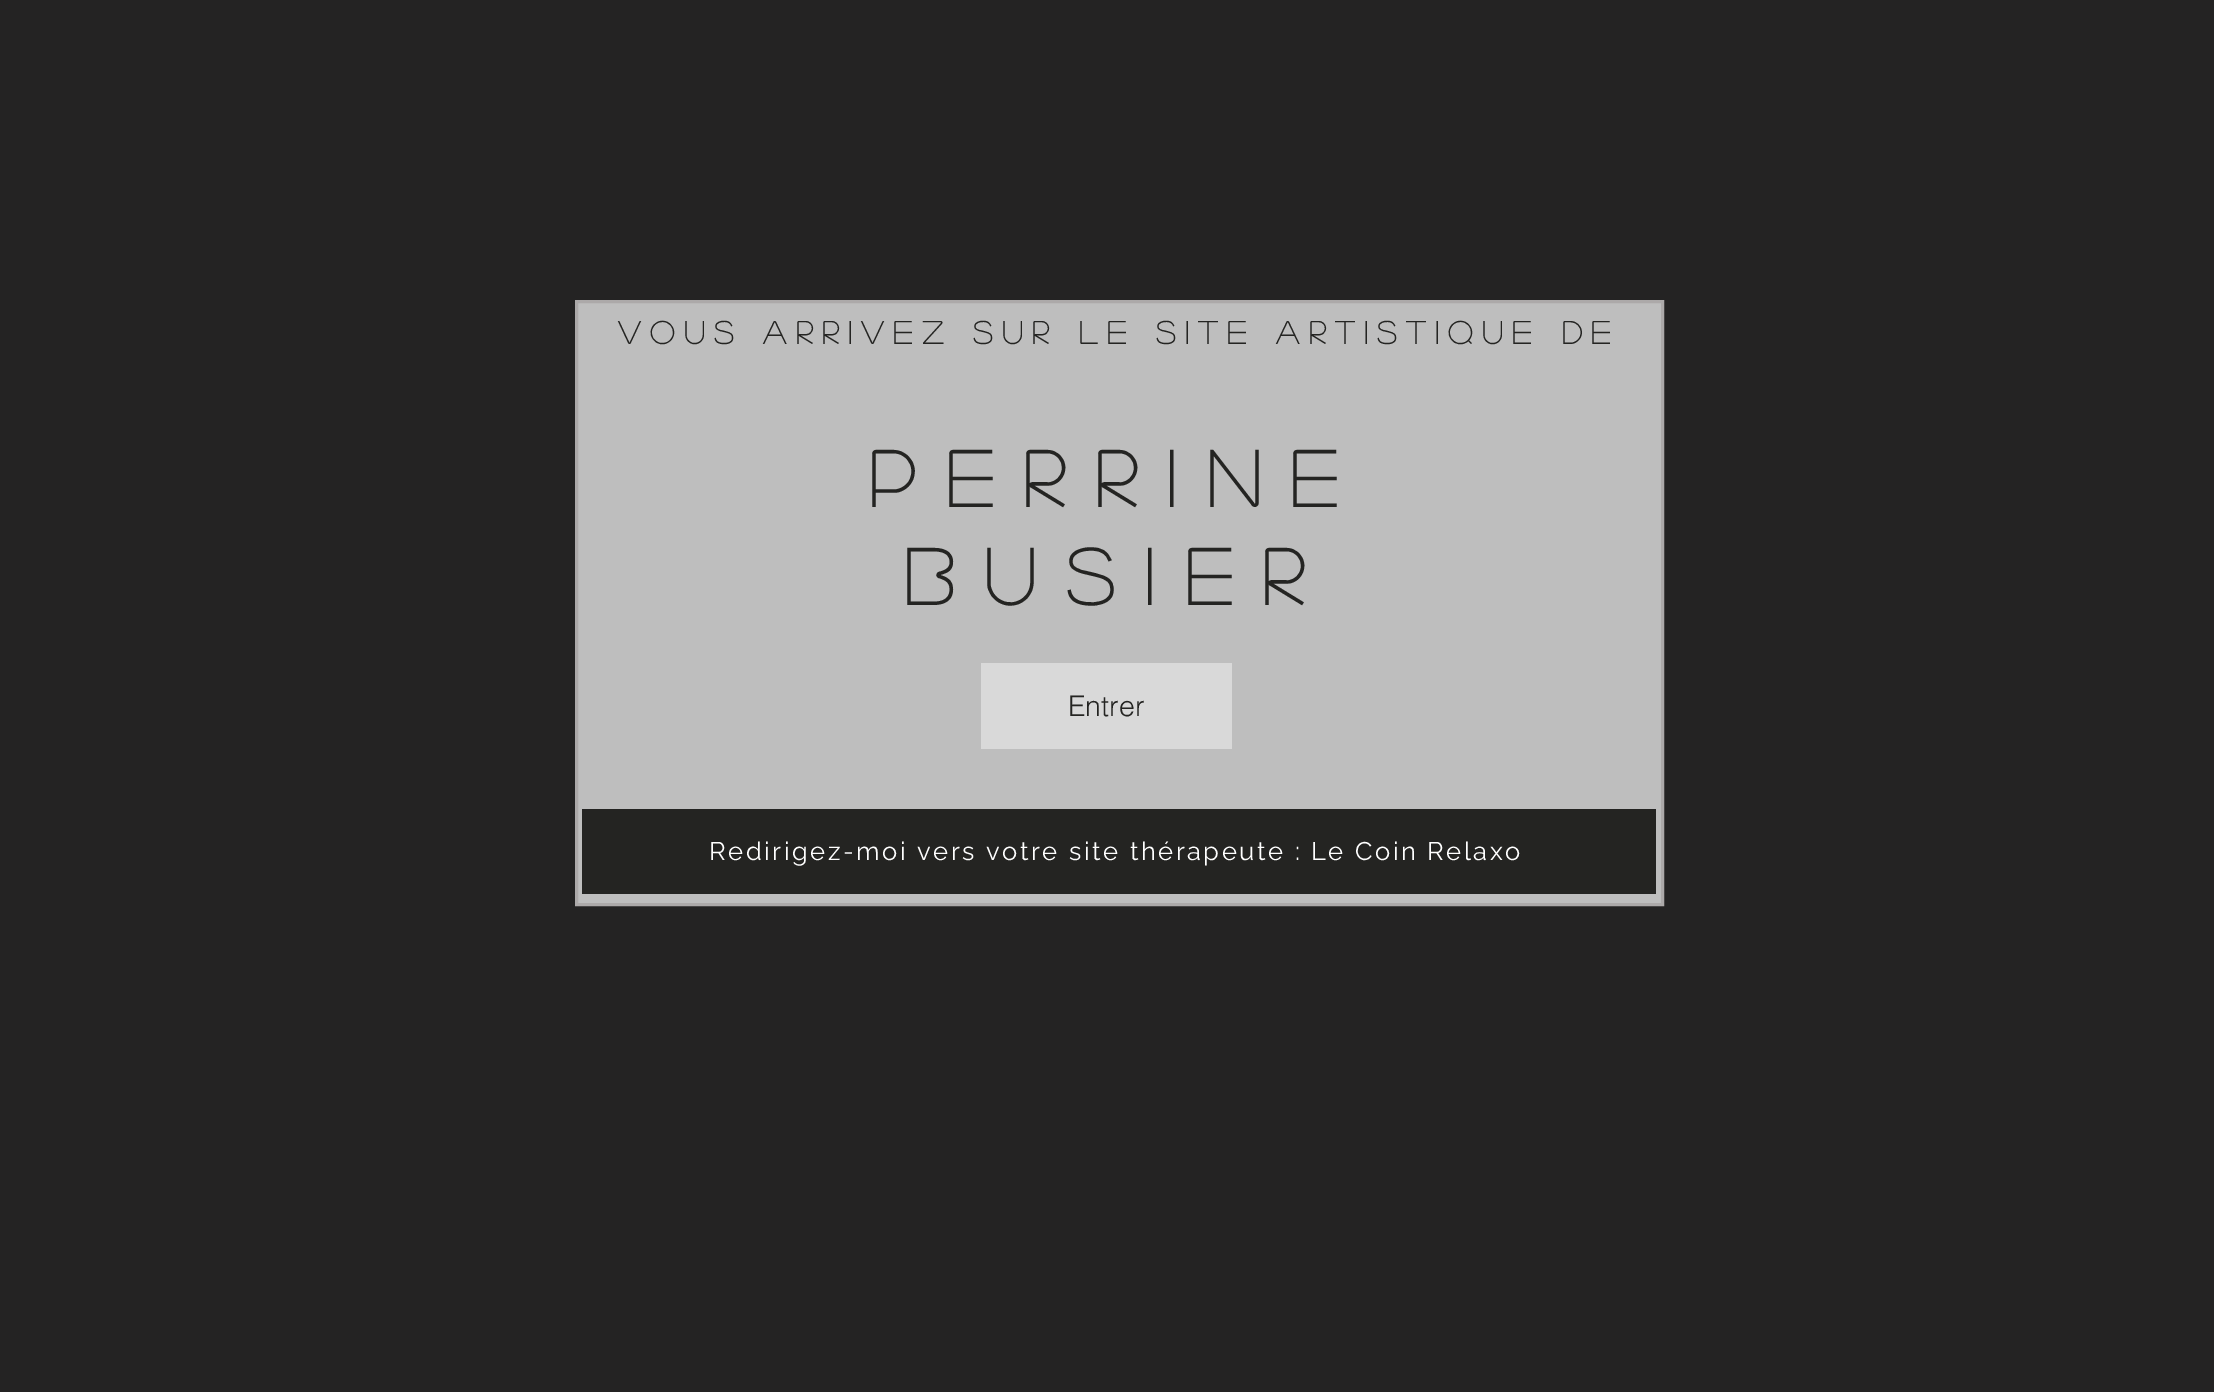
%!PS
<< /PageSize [2214 1392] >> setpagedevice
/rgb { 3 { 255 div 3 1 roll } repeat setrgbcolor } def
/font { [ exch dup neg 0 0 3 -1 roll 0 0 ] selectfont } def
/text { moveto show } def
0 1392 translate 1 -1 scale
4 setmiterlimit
36 35 35 rgb
0 0 2214 1392 rectfill
190 190 190 rgb
576.5 301.5 moveto 1086 0 rlineto 0 603 rlineto -1086 0 rlineto closepath gsave fill grestore
172 169 169 rgb
3 setlinewidth
stroke
217 217 217 rgb
981 663 251 86 rectfill
36 36 34 rgb
582 809 1074 85 rectfill
/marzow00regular-Bold 31.5 font
618 344 moveto 9.75 0 (Vous arrivez sur le site artistique de) ashow
/marzow00regular-Bold 78 font
869 507 moveto 31.25 0 (PErrine) ashow
904 605 moveto 31.25 0 (Busier) ashow
/helvetica-Light 28.5 font
(Entrer) 1068 716 text
/Raleway-Regular 25.5 font
255 255 255 rgb
709 860 moveto 2.55 0 (Redirigez-moi vers votre site thérapeute : Le Coin Relaxo) ashow
showpage
